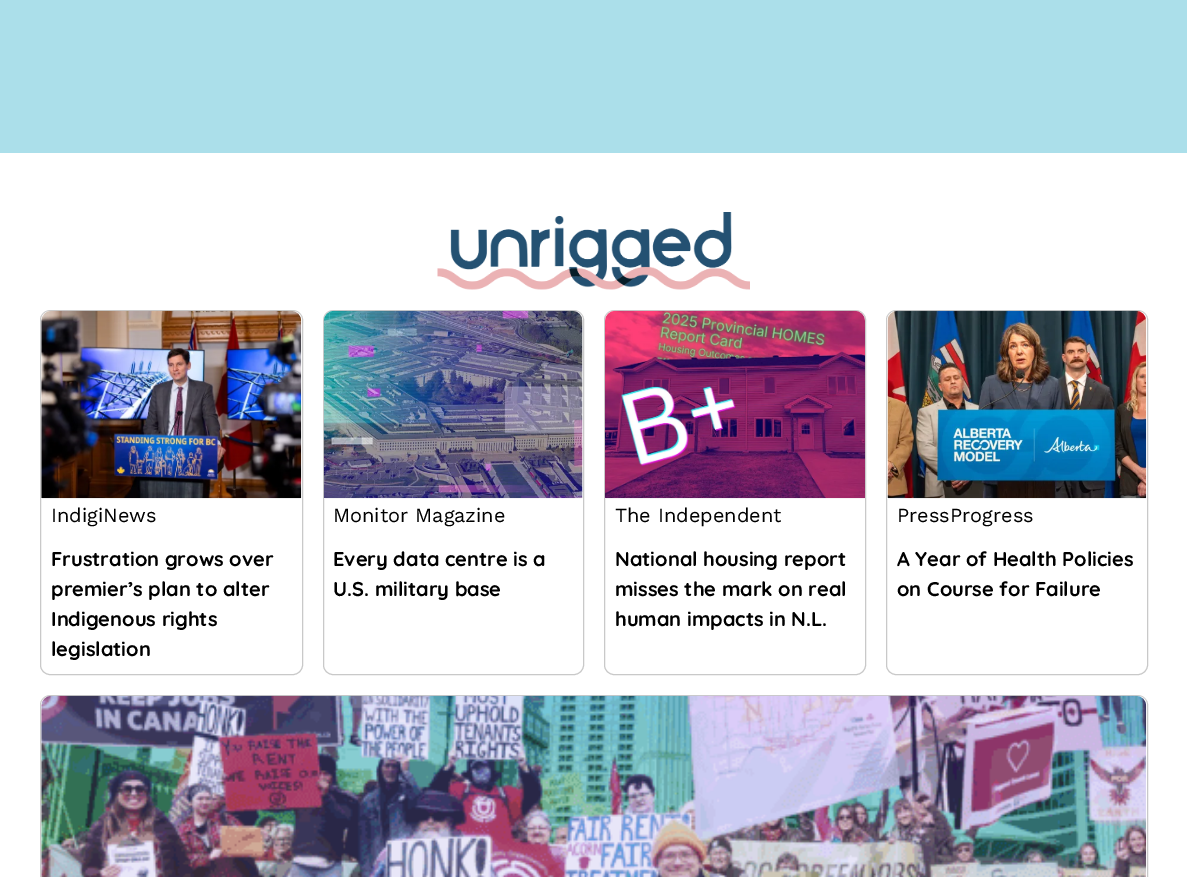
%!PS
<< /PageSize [1187 877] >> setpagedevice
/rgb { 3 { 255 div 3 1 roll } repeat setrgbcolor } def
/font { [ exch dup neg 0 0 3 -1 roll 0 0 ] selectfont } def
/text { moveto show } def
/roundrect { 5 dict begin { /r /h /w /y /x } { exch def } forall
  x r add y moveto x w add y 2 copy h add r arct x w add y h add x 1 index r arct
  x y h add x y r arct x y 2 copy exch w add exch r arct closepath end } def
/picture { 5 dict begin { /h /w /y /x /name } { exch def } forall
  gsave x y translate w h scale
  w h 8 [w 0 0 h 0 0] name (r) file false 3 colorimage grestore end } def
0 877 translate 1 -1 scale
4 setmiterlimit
255 255 255 rgb
0 0 1187 877 rectfill
171 223 234 rgb
0 0 1187 153 rectfill
(img_01.rgb) 437 212 313 78 picture
201 201 201 rgb
40.5 310.5 262 364 9.5 roundrect stroke
(img_02.rgb) 41 310 261 189 picture
323.5 310.5 260 364 9.5 roundrect stroke
(img_03.rgb) 323 310 260 189 picture
604.5 310.5 261 364 9.5 roundrect stroke
(img_04.rgb) 605 310 260 189 picture
886.5 310.5 261 364 9.5 roundrect stroke
(img_05.rgb) 887 310 260 189 picture
40.5 695.5 1107 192 9.5 roundrect stroke
(img_06.rgb) 41 695 1106 182 picture
/WorkSans-Regular 20 font
0 0 0 rgb
(IndigiNews) 51 522 text
/Quicksand-Bold 20 font
(Frustration grows over) 51 566 text
(premier’s plan to alter) 51 596 text
(Indigenous rights) 51 626 text
(legislation) 51 656 text
/WorkSans-Regular 20 font
(Monitor Magazine) 333 522 text
/Quicksand-Bold 20 font
(Every data centre is a) 333 566 text
(U.S. military base) 333 596 text
/WorkSans-Regular 20 font
(The Independent) 615 522 text
/Quicksand-Bold 20 font
(National housing report) 615 566 text
(misses the mark on real) 615 596 text
(human impacts in N.L.) 615 626 text
/WorkSans-Regular 20 font
(PressProgress) 897 522 text
/Quicksand-Bold 20 font
(A Year of Health Policies) 897 566 text
(on Course for Failure) 897 596 text
showpage
